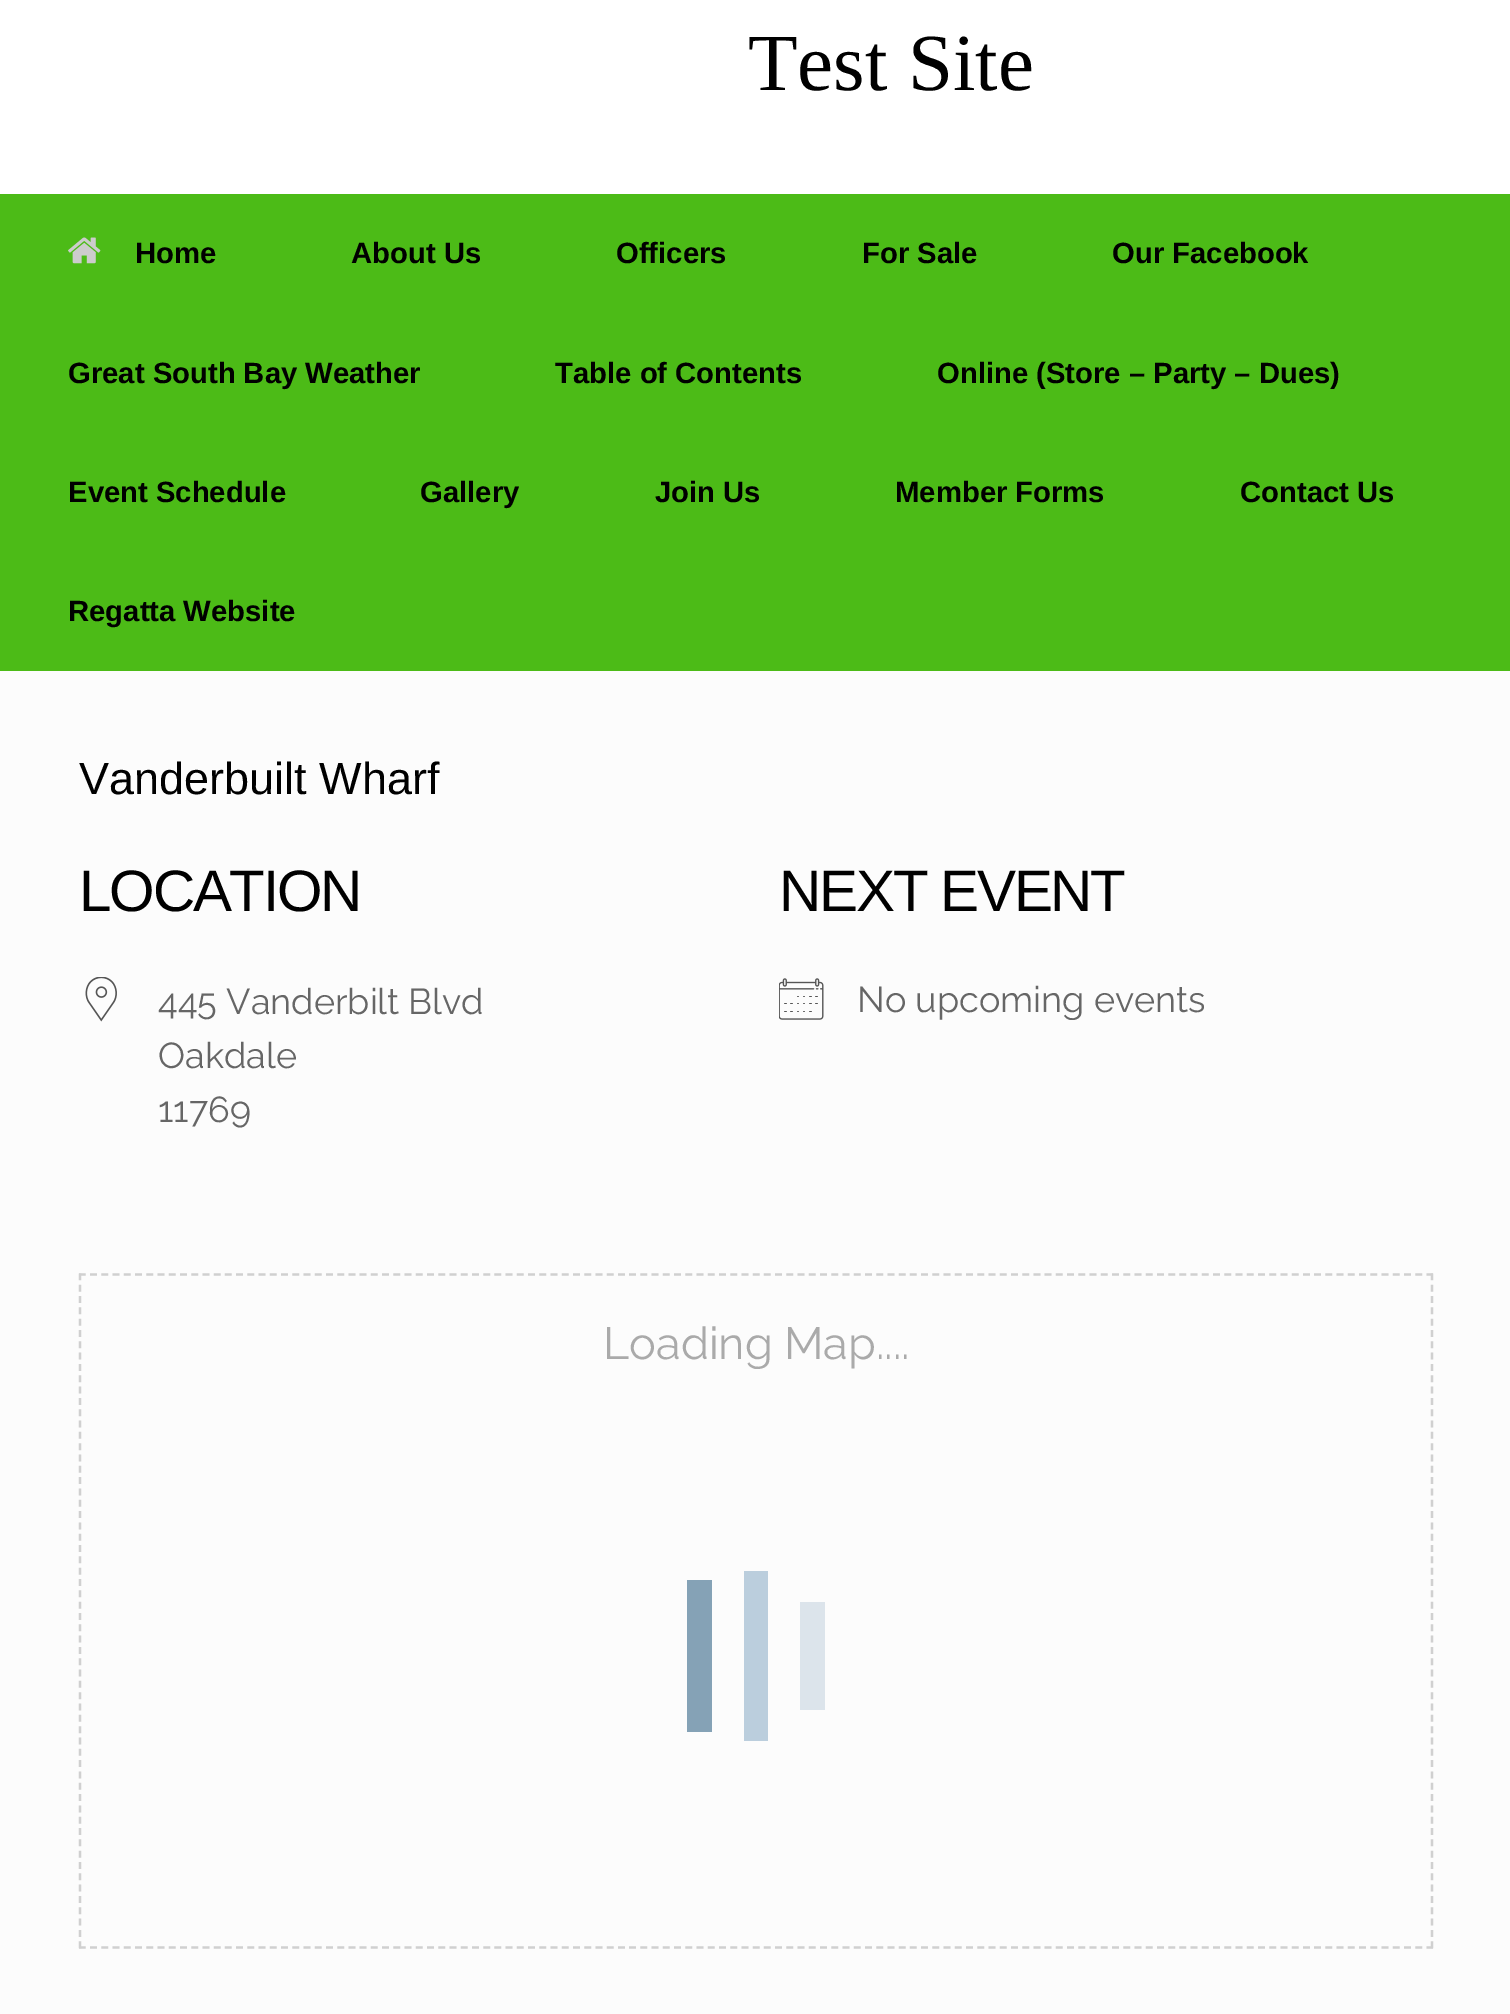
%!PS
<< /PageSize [1510 2014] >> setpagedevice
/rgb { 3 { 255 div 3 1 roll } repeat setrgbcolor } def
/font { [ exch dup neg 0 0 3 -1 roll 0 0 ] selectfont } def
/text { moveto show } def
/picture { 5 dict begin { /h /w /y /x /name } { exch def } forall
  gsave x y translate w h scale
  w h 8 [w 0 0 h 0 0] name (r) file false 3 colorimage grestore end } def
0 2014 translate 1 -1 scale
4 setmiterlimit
255 255 255 rgb
0 0 1510 2014 rectfill
76 187 23 rgb
0 194 1510 477 rectfill
(img_01.rgb) 68 237 33 27 picture
252 252 252 rgb
0 671 1510 1343 rectfill
(img_02.rgb) 85 977 32 45 picture
(img_03.rgb) 779 978 45 42 picture
208 208 208 rgb
2.2 setlinewidth
[6.75 4.48] 0 setdash
79 1274.5 moveto 1354 0 rlineto stroke
[6.75 4.57] 0 setdash
1432 1273.5 moveto 0 675 rlineto stroke
[6.75 4.48] 0 setdash
79 1947.5 moveto 1354 0 rlineto stroke
[6.75 4.57] 0 setdash
80 1273.5 moveto 0 675 rlineto stroke
133 162 182 rgb
687 1580 25 152 rectfill
187 206 221 rgb
744 1571 24 170 rectfill
220 228 235 rgb
800 1602 25 108 rectfill
/LiberationSerif-Regular 81 font
0 0 0 rgb
(Test Site) 748 90 text
/LiberationSans-Bold 29.25 font
(Home) 135 263 text
(About Us) 351 263 text
(Officers) 616 263 text
(For Sale) 862 263 text
(Our Facebook) 1112 263 text
(Great South Bay Weather) 68 383 text
(Table of Contents) 555 383 text
(Online \(Store – Party – Dues\)) 937 383 text
(Event Schedule) 68 502 text
(Gallery) 420 502 text
(Join Us) 655 502 text
(Member Forms) 895 502 text
(Contact Us) 1240 502 text
(Regatta Website) 68 621 text
/LiberationSans-Regular 45 font
(Vanderbuilt Wharf) 79 794 text
/LiberationSans-Regular 58.5 font
79 911 moveto -2.25 0 (LOCATION) ashow
/Raleway-Regular 36 font
102 102 102 rgb
(445 Vanderbilt Blvd) 158 1014 text
(Oakdale) 158 1068 text
(11769) 158 1122 text
/LiberationSans-Regular 58.5 font
0 0 0 rgb
779 911 moveto -2.25 0 (NEXT EVENT) ashow
/Raleway-Regular 36 font
102 102 102 rgb
(No upcoming events) 857 1012 text
/Raleway-Regular 45 font
170 170 170 rgb
(Loading Map....) 603 1359 text
showpage
